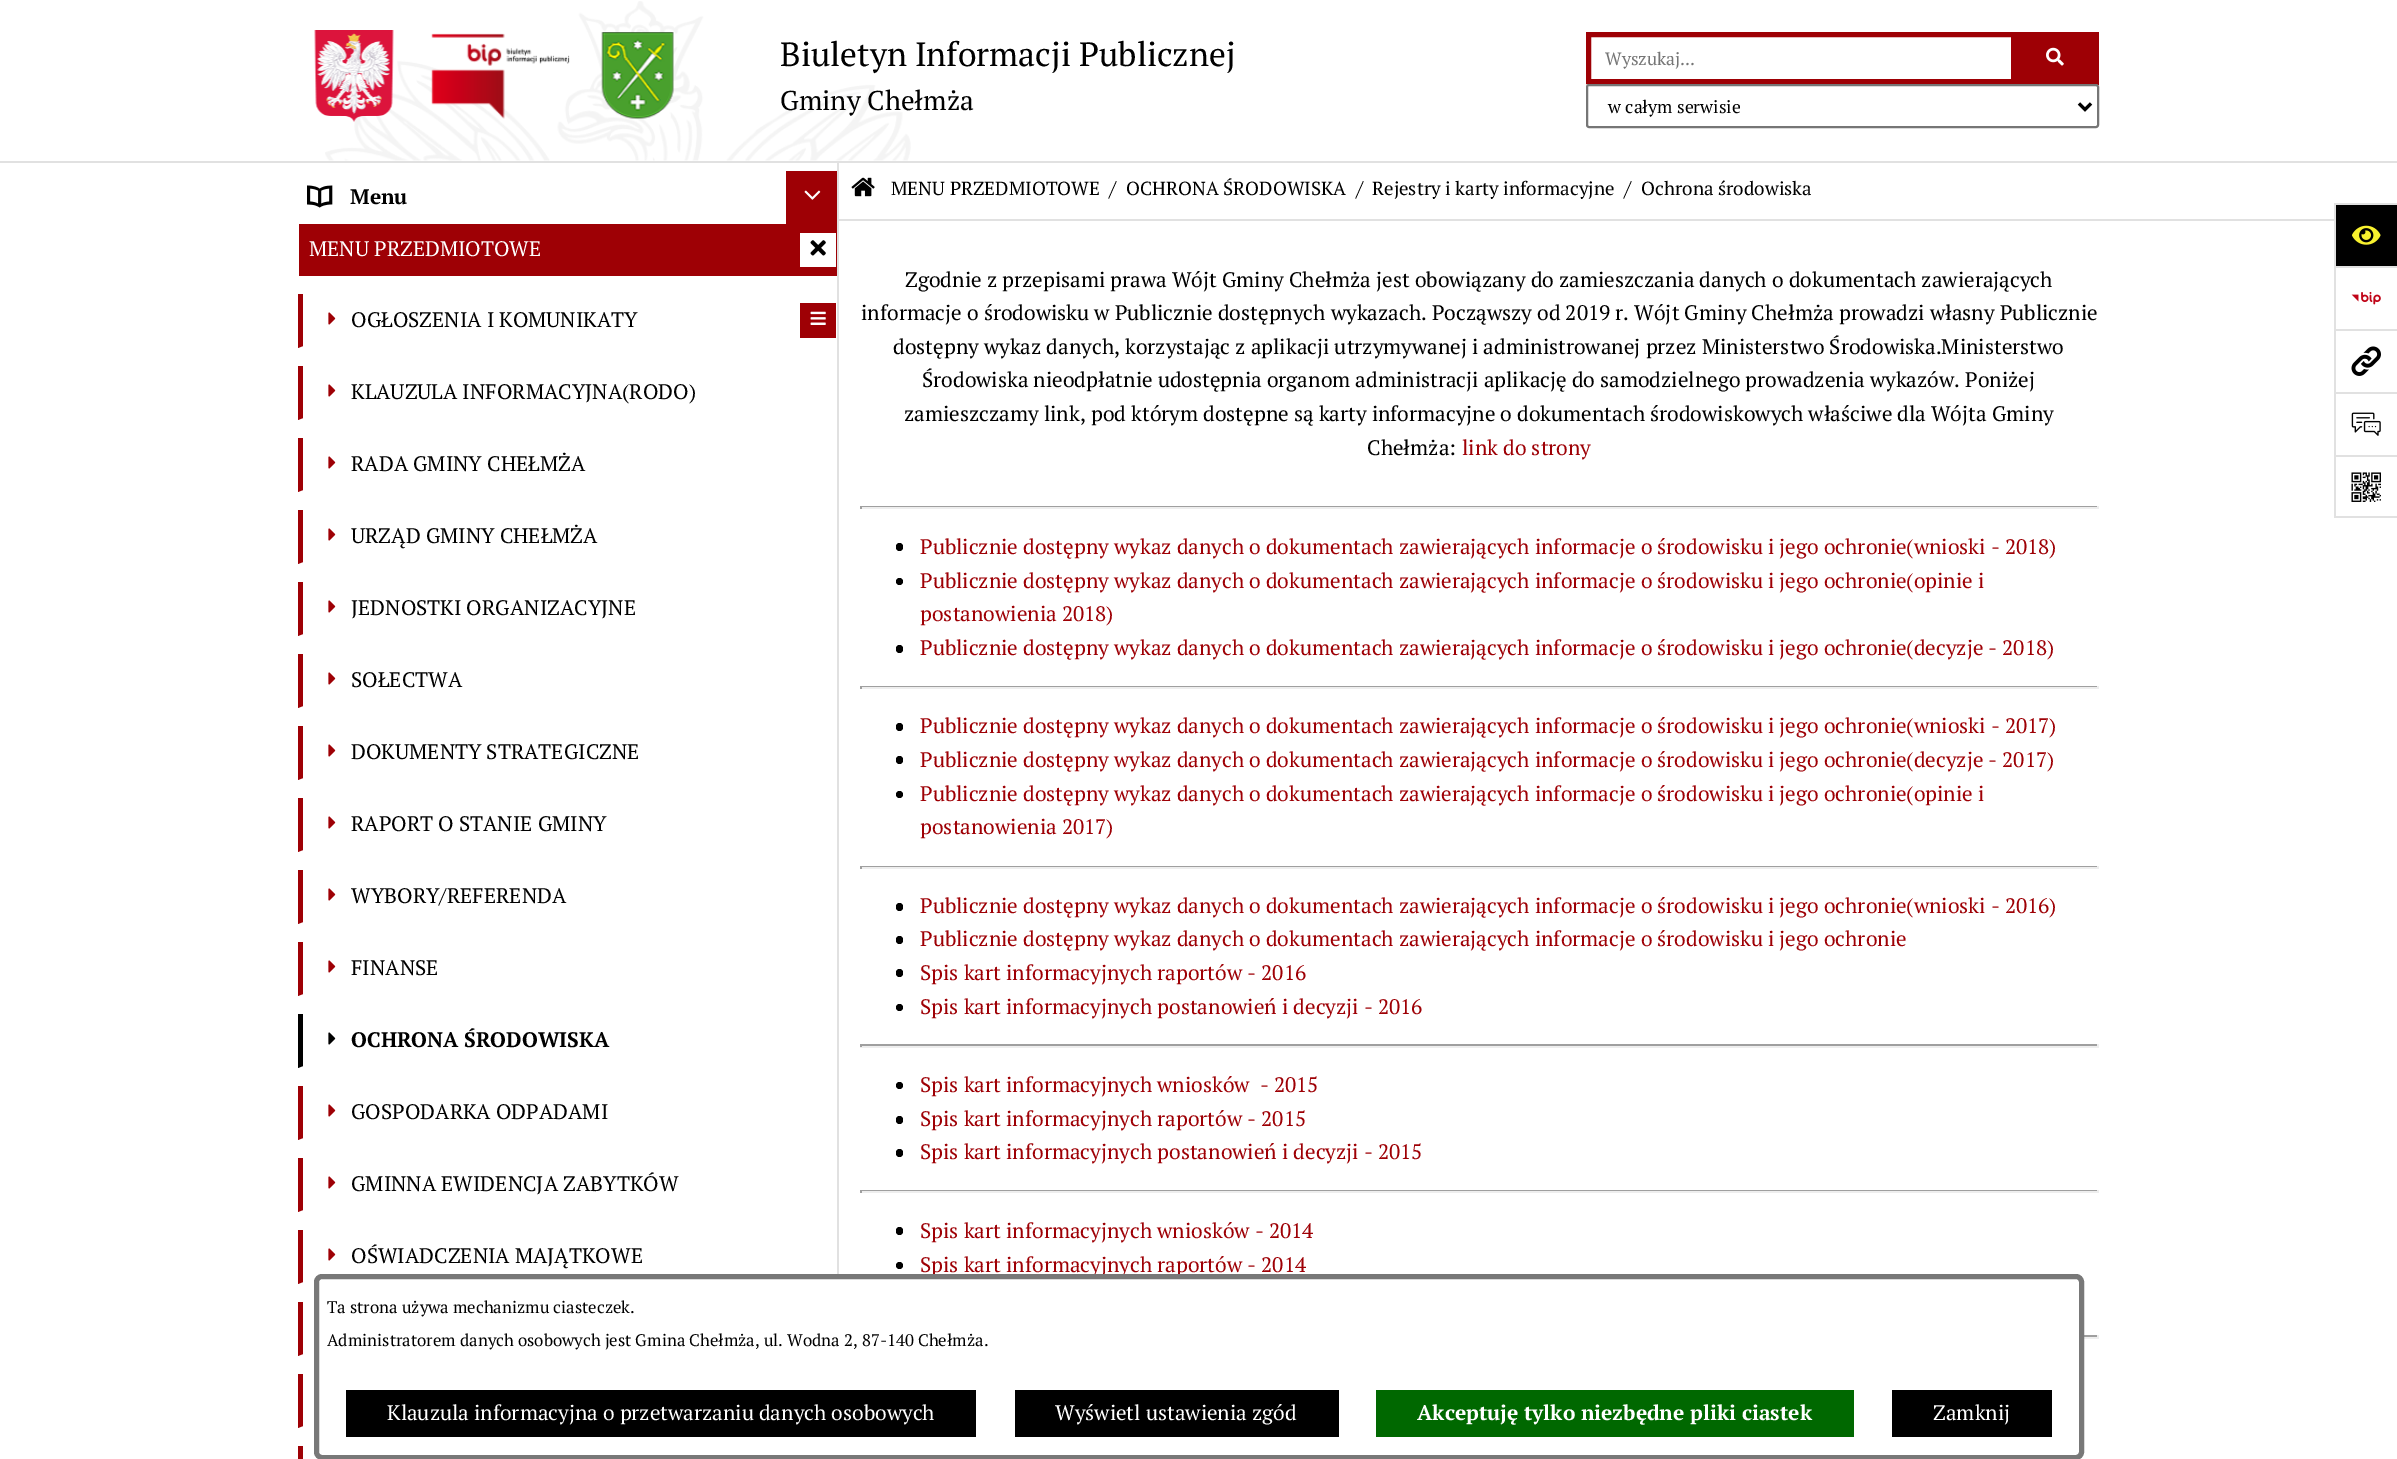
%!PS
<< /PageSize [2397 1459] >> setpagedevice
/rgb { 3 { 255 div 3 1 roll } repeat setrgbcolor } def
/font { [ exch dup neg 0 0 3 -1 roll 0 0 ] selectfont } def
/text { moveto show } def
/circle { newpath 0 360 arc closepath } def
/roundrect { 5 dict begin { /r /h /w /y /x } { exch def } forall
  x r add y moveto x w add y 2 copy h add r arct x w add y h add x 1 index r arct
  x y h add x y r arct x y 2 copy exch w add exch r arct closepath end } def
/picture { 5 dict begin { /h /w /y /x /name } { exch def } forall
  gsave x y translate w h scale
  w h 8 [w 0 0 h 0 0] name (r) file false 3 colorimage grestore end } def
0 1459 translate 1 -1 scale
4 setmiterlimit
255 255 255 rgb
0 0 2397 1459 rectfill
225 225 225 rgb
837 161 2 1113 rectfill
0 161 2397 2 rectfill
(img_01.rgb) 325 1 586 160 picture
(img_02.rgb) 314 30 80 92 picture
(img_03.rgb) 431 33 139 86 picture
(img_04.rgb) 601 32 73 87 picture
158 0 5 rgb
5 setlinewidth
1588.5 34.5 425 47 rectstroke
2016 32 83 53 rectfill
(img_05.rgb) 2046 47 18 19 picture
255 255 255 rgb
1587 85 511 42 2 roundrect gsave fill grestore
118 118 118 rgb
2 setlinewidth
stroke
0 0 0 rgb
3 setlinewidth
2079 103.5 moveto 6 6 rlineto 6 -6 rlineto stroke
(img_06.rgb) 307 185 26 23 picture
158 0 5 rgb
786 171 51 53 rectfill
(img_07.rgb) 804 190 17 10 picture
299 224 538 52 rectfill
255 255 255 rgb
800 233 36 34 rectfill
(img_08.rgb) 810 240 16 16 picture
158 0 5 rgb
298 348 moveto 0 -54 rlineto 5 0 rlineto 0 52 rlineto closepath fill
(img_09.rgb) 328 312 8 13 picture
800 303 36 35 rectfill
(img_10.rgb) 810 311 16 14 picture
298 420 moveto 0 -54 rlineto 5 0 rlineto 0 52 rlineto closepath fill
(img_09.rgb) 328 384 8 13 picture
298 492 moveto 0 -54 rlineto 5 0 rlineto 0 52 rlineto closepath fill
(img_09.rgb) 328 456 8 13 picture
298 564 moveto 0 -54 rlineto 5 0 rlineto 0 52 rlineto closepath fill
(img_09.rgb) 328 528 8 13 picture
298 636 moveto 0 -54 rlineto 5 0 rlineto 0 52 rlineto closepath fill
(img_09.rgb) 328 600 8 13 picture
298 708 moveto 0 -54 rlineto 5 0 rlineto 0 52 rlineto closepath fill
(img_09.rgb) 328 672 8 13 picture
298 780 moveto 0 -54 rlineto 5 0 rlineto 0 52 rlineto closepath fill
(img_09.rgb) 328 744 8 13 picture
298 852 moveto 0 -54 rlineto 5 0 rlineto 0 52 rlineto closepath fill
(img_09.rgb) 328 816 8 13 picture
298 924 moveto 0 -54 rlineto 5 0 rlineto 0 52 rlineto closepath fill
(img_09.rgb) 328 888 8 13 picture
298 996 moveto 0 -54 rlineto 5 0 rlineto 0 52 rlineto closepath fill
(img_09.rgb) 328 960 8 13 picture
0 0 0 rgb
298 1068 moveto 0 -54 rlineto 5 0 rlineto 0 52 rlineto closepath fill
(img_11.rgb) 328 1032 8 13 picture
158 0 5 rgb
298 1140 moveto 0 -54 rlineto 5 0 rlineto 0 52 rlineto closepath fill
(img_09.rgb) 328 1104 8 13 picture
298 1212 moveto 0 -54 rlineto 5 0 rlineto 0 52 rlineto closepath fill
(img_09.rgb) 328 1176 8 13 picture
298 1284 moveto 0 -54 rlineto 5 0 rlineto 0 52 rlineto closepath fill
(img_09.rgb) 328 1248 8 13 picture
298 1356 moveto 0 -54 rlineto 5 0 rlineto 0 52 rlineto closepath fill
298 1428 moveto 0 -54 rlineto 5 0 rlineto 0 52 rlineto closepath fill
298 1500 moveto 0 -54 rlineto 5 0 rlineto 0 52 rlineto closepath fill
0 0 0 rgb
2336 205 61 61 rectfill
225 225 225 rgb
2334 203 63 2 rectfill
2334 203 2 63 rectfill
(img_12.rgb) 2352 225 29 20 picture
2334 266 63 2 rectfill
2334 266 2 63 rectfill
(img_13.rgb) 2351 292 30 13 picture
2334 329 63 2 rectfill
2334 329 2 63 rectfill
(img_14.rgb) 2351 346 30 30 picture
2334 392 63 2 rectfill
2334 392 2 63 rectfill
(img_15.rgb) 2351 412 30 24 picture
2334 455 63 2 rectfill
2334 516 63 2 rectfill
2334 455 2 63 rectfill
(img_16.rgb) 2351 472 30 30 picture
839 219 1495 2 rectfill
(img_17.rgb) 851 177 24 20 picture
159 159 159 rgb
860 506 1239 1 rectfill
238 238 238 rgb
2097 506 2 3 rectfill
860 507 1239 2 rectfill
159 159 159 rgb
860 506 2 3 rectfill
0 0 0 rgb
896 543 7 8 3.5 roundrect fill
899.5 581.5 3.5 circle fill
896 645 7 8 3.5 roundrect fill
159 159 159 rgb
860 686 1239 1 rectfill
238 238 238 rgb
2097 686 2 3 rectfill
860 687 1239 2 rectfill
159 159 159 rgb
860 686 2 3 rectfill
0 0 0 rgb
896 723 7 8 3.5 roundrect fill
896 756 7 8 3.5 roundrect fill
899.5 794.5 3.5 circle fill
159 159 159 rgb
860 866 1239 1 rectfill
238 238 238 rgb
2097 866 2 3 rectfill
860 867 1239 2 rectfill
159 159 159 rgb
860 866 2 3 rectfill
0 0 0 rgb
896 903 7 8 3.5 roundrect fill
896 936 7 8 3.5 roundrect fill
896 969 7 8 3.5 roundrect fill
899.5 1007.5 3.5 circle fill
159 159 159 rgb
860 1044 1239 2 rectfill
238 238 238 rgb
2097 1044 2 3 rectfill
860 1046 1239 2 rectfill
159 159 159 rgb
860 1044 2 3 rectfill
0 0 0 rgb
899.5 1085.5 3.5 circle fill
896 1116 7 8 3.5 roundrect fill
896 1149 7 8 3.5 roundrect fill
159 159 159 rgb
860 1190 1239 1 rectfill
238 238 238 rgb
2097 1190 2 3 rectfill
860 1191 1239 2 rectfill
159 159 159 rgb
860 1190 2 3 rectfill
0 0 0 rgb
896 1227 7 8 3.5 roundrect fill
899.5 1265.5 3.5 circle fill
159 159 159 rgb
2084 1335 15 2 rectfill
238 238 238 rgb
2097 1335 2 3 rectfill
2084 1337 15 2 rectfill
/PTSerif-Regular 33.6 font
0 0 0 rgb
(Biuletyn Informacji Publicznej) 780 66 text
/PTSerif-Regular 27.25 font
(Gminy Chełmża) 780 110 text
/PTSerif-Regular 17.75 font
117 117 117 rgb
(Wyszukaj...) 1605 65 text
0 0 0 rgb
(w całym serwisie) 1608 113 text
/PTSerif-Bold 21 font
(Menu) 350 204 text
/PTSerif-Regular 21 font
255 255 255 rgb
(MENU PRZEDMIOTOWE) 309 256 text
0 0 0 rgb
(OGŁOSZENIA I KOMUNIKATY) 351 327 text
(KLAUZULA INFORMACYJNA\(RODO\)) 351 399 text
(RADA GMINY CHEŁMŻA) 351 471 text
(URZĄD GMINY CHEŁMŻA) 351 543 text
(JEDNOSTKI ORGANIZACYJNE) 351 615 text
(SOŁECTWA) 351 687 text
(DOKUMENTY STRATEGICZNE) 351 759 text
(RAPORT O STANIE GMINY) 351 831 text
(WYBORY/REFERENDA) 351 903 text
(FINANSE) 351 975 text
/PTSerif-Bold 21 font
(OCHRONA ŚRODOWISKA) 351 1047 text
/PTSerif-Regular 21 font
(GOSPODARKA ODPADAMI) 351 1119 text
(GMINNA EWIDENCJA ZABYTKÓW) 351 1191 text
(OŚWIADCZENIA MAJĄTKOWE) 351 1263 text
/PTSerif-Regular 18.9 font
(MENU PRZEDMIOTOWE) 891 195 text
/PTSerif-Regular 21 font
(/) 1109 196 text
/PTSerif-Regular 18.9 font
(OCHRONA ŚRODOWISKA) 1126 195 text
/PTSerif-Regular 21 font
(/) 1356 196 text
/PTSerif-Regular 18.9 font
(Rejestry i karty informacyjne) 1372 195 text
/PTSerif-Regular 21 font
(/) 1624 196 text
/PTSerif-Regular 18.9 font
(Ochrona środowiska) 1641 195 text
/PTSerif-Regular 21 font
(Zgodnie z przepisami prawa Wójt Gminy Chełmża jest obowiązany do zamieszczania danych o dokumentach zawierających) 905 287 text
(informacje o środowisku w Publicznie dostępnych wykazach. Począwszy od 2019 r. Wójt Gminy Chełmża prowadzi własny Publicznie) 861 320 text
(dostępny wykaz danych, korzystając z aplikacji utrzymywanej i administrowanej przez Ministerstwo Środowiska.Ministerstwo) 893 354 text
(Środowiska nieodpłatnie udostępnia organom administracji aplikację do samodzielnego prowadzenia wykazów. Poniżej) 922 387 text
(zamieszczamy link, pod którym dostępne są karty informacyjne o dokumentach środowiskowych właściwe dla Wójta Gminy) 904 421 text
(Chełmża:) 1367 455 text
158 0 5 rgb
(link do strony) 1462 455 text
(Publicznie dostępny wykaz danych o dokumentach zawierających informacje o środowisku i jego ochronie\(wnioski - 2018\)) 920 554 text
(Publicznie dostępny wykaz danych o dokumentach zawierających informacje o środowisku i jego ochronie\(opinie i) 920 588 text
(postanowienia 2018\)) 920 621 text
(Publicznie dostępny wykaz danych o dokumentach zawierających informacje o środowisku i jego ochronie\(decyzje - 2018\)) 920 655 text
(Publicznie dostępny wykaz danych o dokumentach zawierających informacje o środowisku i jego ochronie\(wnioski - 2017\)) 920 733 text
(Publicznie dostępny wykaz danych o dokumentach zawierających informacje o środowisku i jego ochronie\(decyzje - 2017\)) 920 767 text
(Publicznie dostępny wykaz danych o dokumentach zawierających informacje o środowisku i jego ochronie\(opinie i) 920 801 text
(postanowienia 2017\)) 920 834 text
(Publicznie dostępny wykaz danych o dokumentach zawierających informacje o środowisku i jego ochronie\(wnioski - 2016\)) 920 913 text
(Publicznie dostępny wykaz danych o dokumentach zawierających informacje o środowisku i jego ochronie) 920 946 text
(Spis kart informacyjnych raportów - 2016) 920 980 text
(Spis kart informacyjnych postanowień i decyzji - 2016) 920 1014 text
(Spis kart informacyjnych wniosków  - 2015) 920 1092 text
(Spis kart informacyjnych raportów - 2015) 920 1126 text
(Spis kart informacyjnych postanowień i decyzji - 2015) 920 1159 text
(Spis kart informacyjnych wniosków - 2014) 920 1238 text
(Spis kart informacyjnych raportów - 2014) 920 1272 text
255 255 255 rgb
316.5 1276.5 1765 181 5.5 roundrect gsave fill grestore
120 120 120 rgb
5 setlinewidth
stroke
/PTSerif-Regular 16.8 font
0 0 0 rgb
(Ta strona używa mechanizmu ciasteczek.) 327 1313 text
(Administratorem danych osobowych jest Gmina Chełmża, ul. Wodna 2, 87-140 Chełmża.) 327 1346 text
346 1390 630 47 rectfill
/PTSerif-Regular 21 font
255 255 255 rgb
(Klauzula informacyjna o przetwarzaniu danych osobowych) 387 1420 text
0 0 0 rgb
1015 1390 324 47 rectfill
255 255 255 rgb
(Wyświetl ustawienia zgód) 1055 1420 text
0 104 0 rgb
1376 1390 478 47 rectfill
/PTSerif-Bold 21 font
255 255 255 rgb
(Akceptuję tylko niezbędne pliki ciastek) 1417 1420 text
0 0 0 rgb
1892 1390 160 47 rectfill
/PTSerif-Regular 21 font
255 255 255 rgb
(Zamknij) 1933 1420 text
showpage
